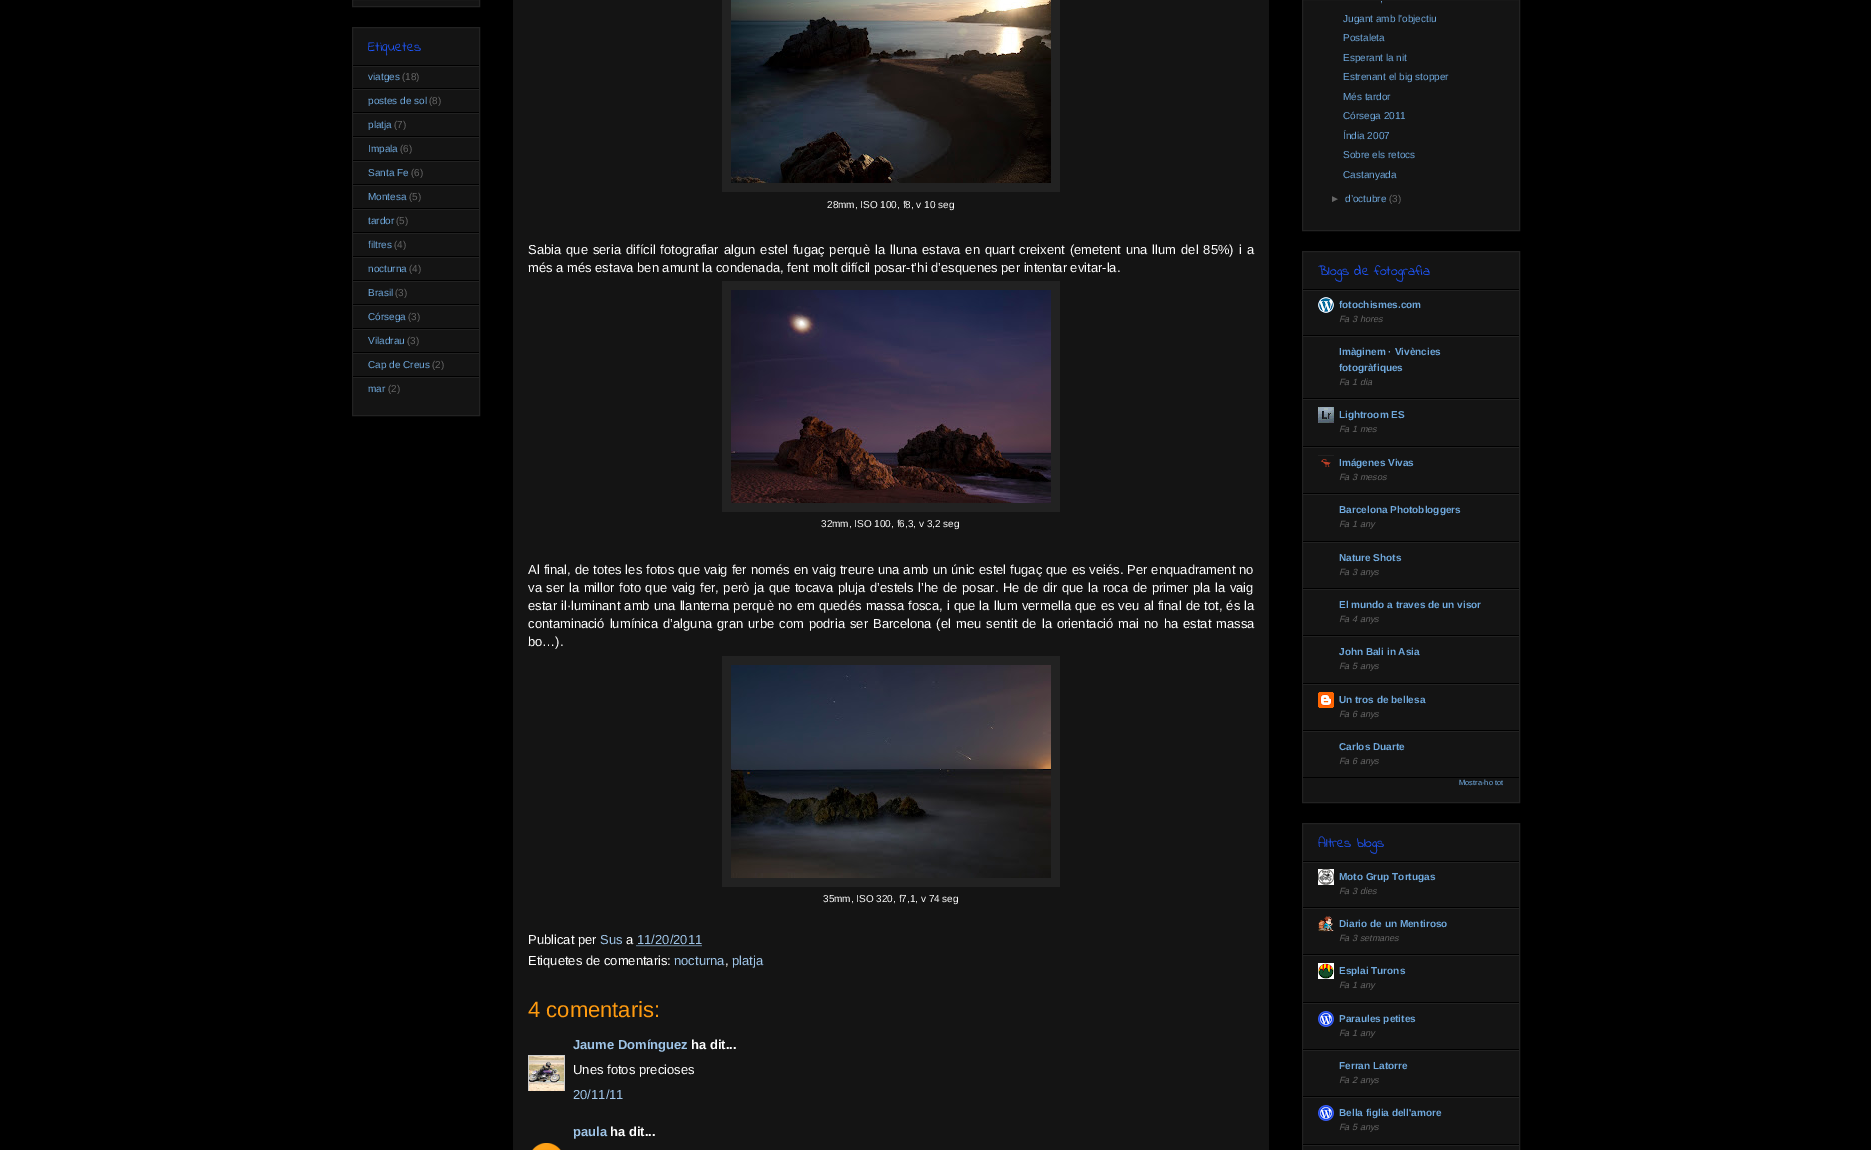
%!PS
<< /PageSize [1871 1150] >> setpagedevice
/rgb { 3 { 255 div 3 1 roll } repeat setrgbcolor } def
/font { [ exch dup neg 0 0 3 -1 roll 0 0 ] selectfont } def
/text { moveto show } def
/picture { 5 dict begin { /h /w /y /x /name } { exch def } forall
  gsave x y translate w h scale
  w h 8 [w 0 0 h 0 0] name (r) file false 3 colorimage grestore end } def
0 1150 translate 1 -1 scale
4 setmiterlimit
0 0 0 rgb
0 0 1871 1150 rectfill
20 20 20 rgb
352.5 -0.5 moveto 127 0 rlineto 0 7 rlineto -127 0 rlineto closepath gsave fill grestore
34 34 34 rgb
stroke
20 20 20 rgb
352.5 27.5 moveto 127 0 rlineto 0 388 rlineto -127 0 rlineto closepath gsave fill grestore
34 34 34 rgb
stroke
0 0 0 rgb
353 65 126 1 rectfill
34 34 34 rgb
353 66 126 1 rectfill
0 0 0 rgb
353 88 126 1 rectfill
34 34 34 rgb
353 89 126 1 rectfill
0 0 0 rgb
353 112 126 1 rectfill
34 34 34 rgb
353 113 126 1 rectfill
0 0 0 rgb
353 136 126 1 rectfill
34 34 34 rgb
353 137 126 1 rectfill
0 0 0 rgb
353 160 126 1 rectfill
34 34 34 rgb
353 161 126 1 rectfill
0 0 0 rgb
353 184 126 1 rectfill
34 34 34 rgb
353 185 126 1 rectfill
0 0 0 rgb
353 208 126 1 rectfill
34 34 34 rgb
353 209 126 1 rectfill
0 0 0 rgb
353 232 126 1 rectfill
34 34 34 rgb
353 233 126 1 rectfill
0 0 0 rgb
353 256 126 1 rectfill
34 34 34 rgb
353 257 126 1 rectfill
0 0 0 rgb
353 280 126 1 rectfill
34 34 34 rgb
353 281 126 1 rectfill
0 0 0 rgb
353 304 126 1 rectfill
34 34 34 rgb
353 305 126 1 rectfill
0 0 0 rgb
353 328 126 1 rectfill
34 34 34 rgb
353 329 126 1 rectfill
0 0 0 rgb
353 352 126 1 rectfill
34 34 34 rgb
353 353 126 1 rectfill
0 0 0 rgb
353 376 126 1 rectfill
34 34 34 rgb
353 377 126 1 rectfill
20 20 20 rgb
513 0 756 1150 rectfill
34 34 34 rgb
722 0 338 192 rectfill
(img_01.rgb) 731 0 320 183 picture
722 281 338 231 rectfill
(img_02.rgb) 731 290 320 213 picture
722 656 338 231 rectfill
(img_03.rgb) 731 665 320 213 picture
159 197 232 rgb
[1 1] 0 setdash
636.5 945.5 moveto 65 0 rlineto stroke
gsave
528 1055 37 36 rectclip
204 204 204 rgb
[] 0 setdash
528.5 1055.5 36 36 rectstroke
grestore
(img_04.rgb) 529 1056 35 35 picture
(img_05.rgb) 532 1143 29 7 picture
20 20 20 rgb
1302.5 -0.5 moveto 217 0 rlineto 0 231 rlineto -217 0 rlineto closepath gsave fill grestore
34 34 34 rgb
[] 0 setdash
stroke
20 20 20 rgb
1302.5 251.5 moveto 217 0 rlineto 0 551 rlineto -217 0 rlineto closepath gsave fill grestore
34 34 34 rgb
stroke
0 0 0 rgb
1303 289 216 1 rectfill
34 34 34 rgb
1303 290 216 1 rectfill
0 0 0 rgb
1303 335 216 1 rectfill
(img_06.rgb) 1318 297 16 16 picture
34 34 34 rgb
1303 336 216 1 rectfill
0 0 0 rgb
1303 398 216 1 rectfill
34 34 34 rgb
1303 399 216 1 rectfill
0 0 0 rgb
1303 446 216 1 rectfill
(img_07.rgb) 1318 407 16 16 picture
34 34 34 rgb
1303 447 216 1 rectfill
0 0 0 rgb
1303 493 216 1 rectfill
(img_08.rgb) 1318 455 16 12 picture
34 34 34 rgb
1303 494 216 1 rectfill
0 0 0 rgb
1303 541 216 1 rectfill
34 34 34 rgb
1303 542 216 1 rectfill
0 0 0 rgb
1303 588 216 1 rectfill
34 34 34 rgb
1303 589 216 1 rectfill
0 0 0 rgb
1303 635 216 1 rectfill
34 34 34 rgb
1303 636 216 1 rectfill
0 0 0 rgb
1303 683 216 1 rectfill
34 34 34 rgb
1303 684 216 1 rectfill
0 0 0 rgb
1303 730 216 1 rectfill
(img_09.rgb) 1318 692 16 16 picture
34 34 34 rgb
1303 731 216 1 rectfill
0 0 0 rgb
1303 777 216 1 rectfill
20 20 20 rgb
1302.5 823.5 moveto 217 0 rlineto 0 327 rlineto -217 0 rlineto closepath gsave fill grestore
34 34 34 rgb
stroke
0 0 0 rgb
1303 861 216 1 rectfill
34 34 34 rgb
1303 862 216 1 rectfill
0 0 0 rgb
1303 907 216 1 rectfill
(img_10.rgb) 1318 869 16 16 picture
34 34 34 rgb
1303 908 216 1 rectfill
0 0 0 rgb
1303 954 216 1 rectfill
(img_11.rgb) 1318 916 16 16 picture
34 34 34 rgb
1303 955 216 1 rectfill
0 0 0 rgb
1303 1002 216 1 rectfill
(img_12.rgb) 1318 963 16 16 picture
34 34 34 rgb
1303 1003 216 1 rectfill
0 0 0 rgb
1303 1049 216 1 rectfill
(img_13.rgb) 1318 1011 16 16 picture
34 34 34 rgb
1303 1050 216 1 rectfill
0 0 0 rgb
1303 1096 216 1 rectfill
34 34 34 rgb
1303 1097 216 1 rectfill
0 0 0 rgb
1303 1144 216 1 rectfill
(img_13.rgb) 1318 1105 16 16 picture
34 34 34 rgb
1303 1145 216 1 rectfill
/IndieFlower-Regular 14 font
31 87 255 rgb
(Etiquetes) 368 51 text
/Arimo-Regular 10 font
111 168 220 rgb
(viatges) 368 80 text
102 102 102 rgb
(\(18\)) 402 80 text
111 168 220 rgb
(postes de sol) 368 104 text
102 102 102 rgb
(\(8\)) 429 104 text
111 168 220 rgb
(platja) 368 128 text
102 102 102 rgb
(\(7\)) 394 128 text
111 168 220 rgb
(Impala) 368 152 text
102 102 102 rgb
(\(6\)) 400 152 text
111 168 220 rgb
(Santa Fe) 368 176 text
102 102 102 rgb
(\(6\)) 411 176 text
111 168 220 rgb
(Montesa) 368 200 text
102 102 102 rgb
(\(5\)) 409 200 text
111 168 220 rgb
(tardor) 368 224 text
102 102 102 rgb
(\(5\)) 396 224 text
111 168 220 rgb
(filtres) 368 248 text
102 102 102 rgb
(\(4\)) 394 248 text
111 168 220 rgb
(nocturna) 368 272 text
102 102 102 rgb
(\(4\)) 409 272 text
111 168 220 rgb
(Brasil) 368 296 text
102 102 102 rgb
(\(3\)) 395 296 text
111 168 220 rgb
(Córsega) 368 320 text
102 102 102 rgb
(\(3\)) 408 320 text
111 168 220 rgb
(Viladrau) 368 344 text
102 102 102 rgb
(\(3\)) 407 344 text
111 168 220 rgb
(Cap de Creus) 368 368 text
102 102 102 rgb
(\(2\)) 432 368 text
111 168 220 rgb
(mar) 368 392 text
102 102 102 rgb
(\(2\)) 388 392 text
255 255 255 rgb
(28mm, ISO 100, f8, v 10 seg) 827 208 text
/Arimo-Regular 13 font
528 254 moveto 1.3 0 32 (Sabia que seria difícil fotografiar algun estel fugaç perquè la lluna estava en quart creixent \(emetent una llum del 85%\) i a) widthshow
(més a més estava ben amunt la condenada, fent molt difícil posar-t’hi d’esquenes per intentar evitar-la.) 528 272 text
/Arimo-Regular 10 font
(32mm, ISO 100, f6,3, v 3,2 seg) 821 527 text
/Arimo-Regular 13 font
528 574 moveto 0.35 0 32 (Al final, de totes les fotos que vaig fer només en vaig treure una amb un únic estel fugaç que es veiés. Per enquadrament no) widthshow
528 592 moveto 0.95 0 32 (va ser la millor foto que vaig fer, però ja que tocava pluja d’estels l’he de posar. He de dir que la roca de primer pla la vaig) widthshow
528 610 moveto 0.5 0 32 (estar il·luminant amb una llanterna perquè no em quedés massa fosca, i que la llum vermella que es veu al final de tot, és la) widthshow
528 628 moveto 1.4 0 32 (contaminació lumínica d’alguna gran urbe com podria ser Barcelona \(el meu sentit de la orientació mai no ha estat massa) widthshow
(bo…\).) 528 646 text
/Arimo-Regular 10 font
(35mm, ISO 320, f7,1, v 74 seg) 823 902 text
/Arimo-Regular 13 font
(Publicat per) 528 944 text
159 197 232 rgb
(Sus) 600 944 text
255 255 255 rgb
(a) 626 944 text
159 197 232 rgb
(11/20/2011) 637 944 text
255 255 255 rgb
(Etiquetes de comentaris:) 528 965 text
159 197 232 rgb
(nocturna) 674 965 text
255 255 255 rgb
(,) 725 965 text
159 197 232 rgb
(platja) 732 965 text
/LiberationSans-Regular 22 font
255 155 16 rgb
(4 comentaris:) 528 1017 text
/Arimo-Bold 13 font
159 197 232 rgb
(Jaume Domínguez) 573 1049 text
255 255 255 rgb
(ha dit...) 691 1049 text
/Arimo-Regular 13 font
(Unes fotos precioses) 573 1074 text
159 197 232 rgb
(20/11/11) 573 1099 text
/Arimo-Bold 13 font
(paula) 573 1136 text
255 255 255 rgb
(ha dit...) 610 1136 text
/Arimo-Regular 10 font
111 168 220 rgb
(,) 1380 2 text
(Jugant amb l'objectiu) 1343 22 text
(Postaleta) 1343 41 text
(Esperant la nit) 1343 61 text
(Estrenant el big stopper) 1343 80 text
(Més tardor) 1343 100 text
(Córsega 2011) 1343 119 text
(Índia 2007) 1343 139 text
(Sobre els retocs) 1343 158 text
(Castanyada) 1343 178 text
/LiberationSans-Regular 10 font
102 102 102 rgb
(►) 1330 202 text
/Arimo-Regular 10 font
111 168 220 rgb
(d’octubre) 1345 202 text
102 102 102 rgb
(\(3\)) 1389 202 text
/IndieFlower-Regular 14 font
31 87 255 rgb
(Blogs de fotografia) 1318 275 text
/Arimo-Bold 10 font
111 168 220 rgb
(fotochismes.com) 1339 308 text
/Arimo-Italic 9 font
102 102 102 rgb
(Fa 3 hores) 1339 322 text
/Arimo-Bold 10 font
111 168 220 rgb
(Imàginem · Vivències) 1339 355 text
(fotogràfiques) 1339 371 text
/Arimo-Italic 9 font
102 102 102 rgb
(Fa 1 dia) 1339 385 text
/Arimo-Bold 10 font
111 168 220 rgb
(Lightroom ES) 1339 418 text
/Arimo-Italic 9 font
102 102 102 rgb
(Fa 1 mes) 1339 432 text
/Arimo-Bold 10 font
111 168 220 rgb
(Imágenes Vivas) 1339 466 text
/Arimo-Italic 9 font
102 102 102 rgb
(Fa 3 mesos) 1339 480 text
/Arimo-Bold 10 font
111 168 220 rgb
(Barcelona Photobloggers) 1339 513 text
/Arimo-Italic 9 font
102 102 102 rgb
(Fa 1 any) 1339 527 text
/Arimo-Bold 10 font
111 168 220 rgb
(Nature Shots) 1339 561 text
/Arimo-Italic 9 font
102 102 102 rgb
(Fa 3 anys) 1339 575 text
/Arimo-Bold 10 font
111 168 220 rgb
(El mundo a traves de un visor) 1339 608 text
/Arimo-Italic 9 font
102 102 102 rgb
(Fa 4 anys) 1339 622 text
/Arimo-Bold 10 font
111 168 220 rgb
(John Bali in Asia) 1339 655 text
/Arimo-Italic 9 font
102 102 102 rgb
(Fa 5 anys) 1339 669 text
/Arimo-Bold 10 font
111 168 220 rgb
(Un tros de bellesa) 1339 703 text
/Arimo-Italic 9 font
102 102 102 rgb
(Fa 6 anys) 1339 717 text
/Arimo-Bold 10 font
111 168 220 rgb
(Carlos Duarte) 1339 750 text
/Arimo-Italic 9 font
102 102 102 rgb
(Fa 6 anys) 1339 764 text
/Arimo-Regular 7.5 font
111 168 220 rgb
(Mostra-ho tot) 1459 785 text
/IndieFlower-Regular 14 font
31 87 255 rgb
(Altres blogs) 1318 847 text
/Arimo-Bold 10 font
111 168 220 rgb
(Moto Grup Tortugas) 1339 880 text
/Arimo-Italic 9 font
102 102 102 rgb
(Fa 3 dies) 1339 894 text
/Arimo-Bold 10 font
111 168 220 rgb
(Diario de un Mentiroso) 1339 927 text
/Arimo-Italic 9 font
102 102 102 rgb
(Fa 3 setmanes) 1339 941 text
/Arimo-Bold 10 font
111 168 220 rgb
(Esplai Turons) 1339 974 text
/Arimo-Italic 9 font
102 102 102 rgb
(Fa 1 any) 1339 988 text
/Arimo-Bold 10 font
111 168 220 rgb
(Paraules petites) 1339 1022 text
/Arimo-Italic 9 font
102 102 102 rgb
(Fa 1 any) 1339 1036 text
/Arimo-Bold 10 font
111 168 220 rgb
(Ferran Latorre) 1339 1069 text
/Arimo-Italic 9 font
102 102 102 rgb
(Fa 2 anys) 1339 1083 text
/Arimo-Bold 10 font
111 168 220 rgb
(Bella figlia dell'amore) 1339 1116 text
/Arimo-Italic 9 font
102 102 102 rgb
(Fa 5 anys) 1339 1130 text
showpage
